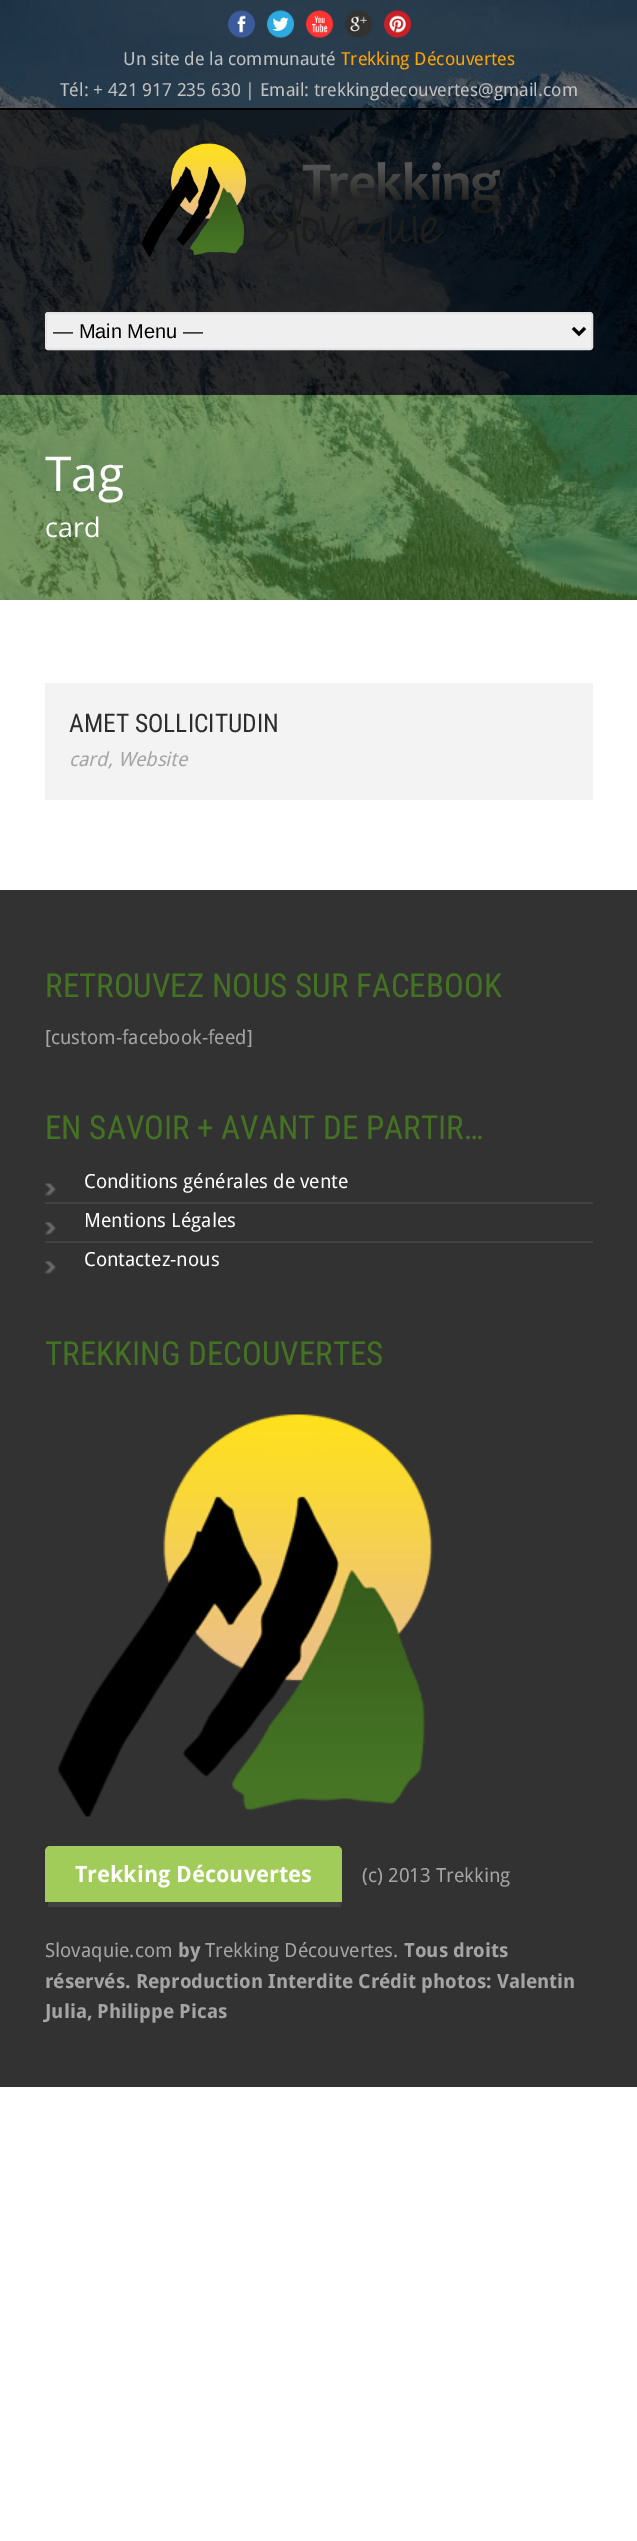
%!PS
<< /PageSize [637 2541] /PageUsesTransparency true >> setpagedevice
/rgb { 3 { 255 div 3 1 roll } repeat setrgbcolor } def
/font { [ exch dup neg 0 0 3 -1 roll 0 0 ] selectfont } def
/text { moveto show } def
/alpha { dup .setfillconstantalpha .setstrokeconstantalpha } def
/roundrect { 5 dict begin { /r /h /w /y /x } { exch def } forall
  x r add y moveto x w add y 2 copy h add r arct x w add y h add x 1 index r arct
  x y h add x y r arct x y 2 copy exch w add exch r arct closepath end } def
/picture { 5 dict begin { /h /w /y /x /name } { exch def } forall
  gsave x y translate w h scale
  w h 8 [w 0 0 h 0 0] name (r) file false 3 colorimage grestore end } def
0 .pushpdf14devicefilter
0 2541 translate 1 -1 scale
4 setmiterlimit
255 255 255 rgb
0 0 637 2541 rectfill
(img_01.rgb) 0 0 637 600 picture
0.6 alpha
0 0 0 rgb
0 0 637 108 rectfill
1 alpha
0 108 637 2 rectfill
(img_02.rgb) 228 10 27 28 picture
(img_03.rgb) 267 10 27 28 picture
(img_04.rgb) 306 10 27 28 picture
(img_05.rgb) 345 10 27 28 picture
(img_06.rgb) 384 10 27 28 picture
0.83 alpha
0 110 637 285 rectfill
1 alpha
(img_07.rgb) 141 143 359 135 picture
239 239 239 rgb
46 313 546 36 2 roundrect gsave fill grestore
229 229 229 rgb
2 setlinewidth
stroke
0 0 0 rgb
3 setlinewidth
573 328 moveto 6 6 rlineto 6 -6 rlineto stroke
0.7 alpha
68 114 35 rgb
0 395 637 205 rectfill
1 alpha
243 243 243 rgb
45 683 548 117 rectfill
50 50 50 rgb
0 890 637 1197 rectfill
(img_08.rgb) 45 1183 11 13 picture
66 66 66 rgb
45 1202 548 2 rectfill
(img_08.rgb) 45 1222 11 13 picture
45 1241 548 2 rectfill
(img_08.rgb) 45 1261 11 13 picture
(img_09.rgb) 58 1414 375 403 picture
161 204 89 rgb
50 1846 moveto 288 0 rlineto 2 0 4 3 4 5 rcurveto 0 51 rlineto -297 0 rlineto 0 -51 rlineto 0 -2 2 -5 5 -5 rcurveto closepath fill
66 66 66 rgb
48 1902 293 5 rectfill
/DroidSans-Regular 18 font
194 194 194 rgb
(Un site de la communauté) 123 65 text
255 165 0 rgb
(Trekking Découvertes) 341 65 text
194 194 194 rgb
(Tél: + 421 917 235 630 | Email: trekkingdecouvertes@gmail.com) 60 96 text
/LiberationSans-Regular 20 font
0 0 0 rgb
(— Main Menu —) 53 338 text
/OpenSans-Regular 48 font
255 255 255 rgb
(Tag) 45 491 text
/OpenSans-Regular 27 font
(card) 45 537 text
/RobotoCondensed-Regular 25.5 font
45 45 45 rgb
(AMET SOLLICITUDIN) 69 732 text
/DroidSans-Italic 19.5 font
165 165 165 rgb
(card, Website) 69 766 text
/RobotoCondensed-Regular 33 font
68 114 35 rgb
(RETROUVEZ NOUS SUR FACEBOOK) 45 997 text
/DroidSans-Regular 19.5 font
165 165 165 rgb
([custom-facebook-feed]) 45 1044 text
/RobotoCondensed-Regular 33 font
68 114 35 rgb
(EN SAVOIR + AVANT DE PARTIR…) 45 1139 text
/DroidSans-Regular 19.5 font
255 255 255 rgb
(Conditions générales de vente) 84 1188 text
(Mentions Légales) 84 1227 text
(Contactez-nous) 84 1266 text
/RobotoCondensed-Regular 33 font
68 114 35 rgb
(TREKKING DECOUVERTES) 45 1365 text
/DroidSans-Bold 22.5 font
255 255 255 rgb
(Trekking Découvertes) 75 1882 text
/DroidSans-Regular 19.5 font
165 165 165 rgb
(\(c\) 2013 Trekking) 362 1882 text
(Slovaquie.com) 45 1957 text
/DroidSans-Bold 19.5 font
(by) 178 1957 text
/DroidSans-Regular 19.5 font
(Trekking Découvertes.) 205 1957 text
/DroidSans-Bold 19.5 font
(Tous droits) 404 1957 text
(réservés. Reproduction Interdite Crédit photos: Valentin) 45 1988 text
(Julia, Philippe Picas) 45 2018 text
.poppdf14devicefilter showpage
